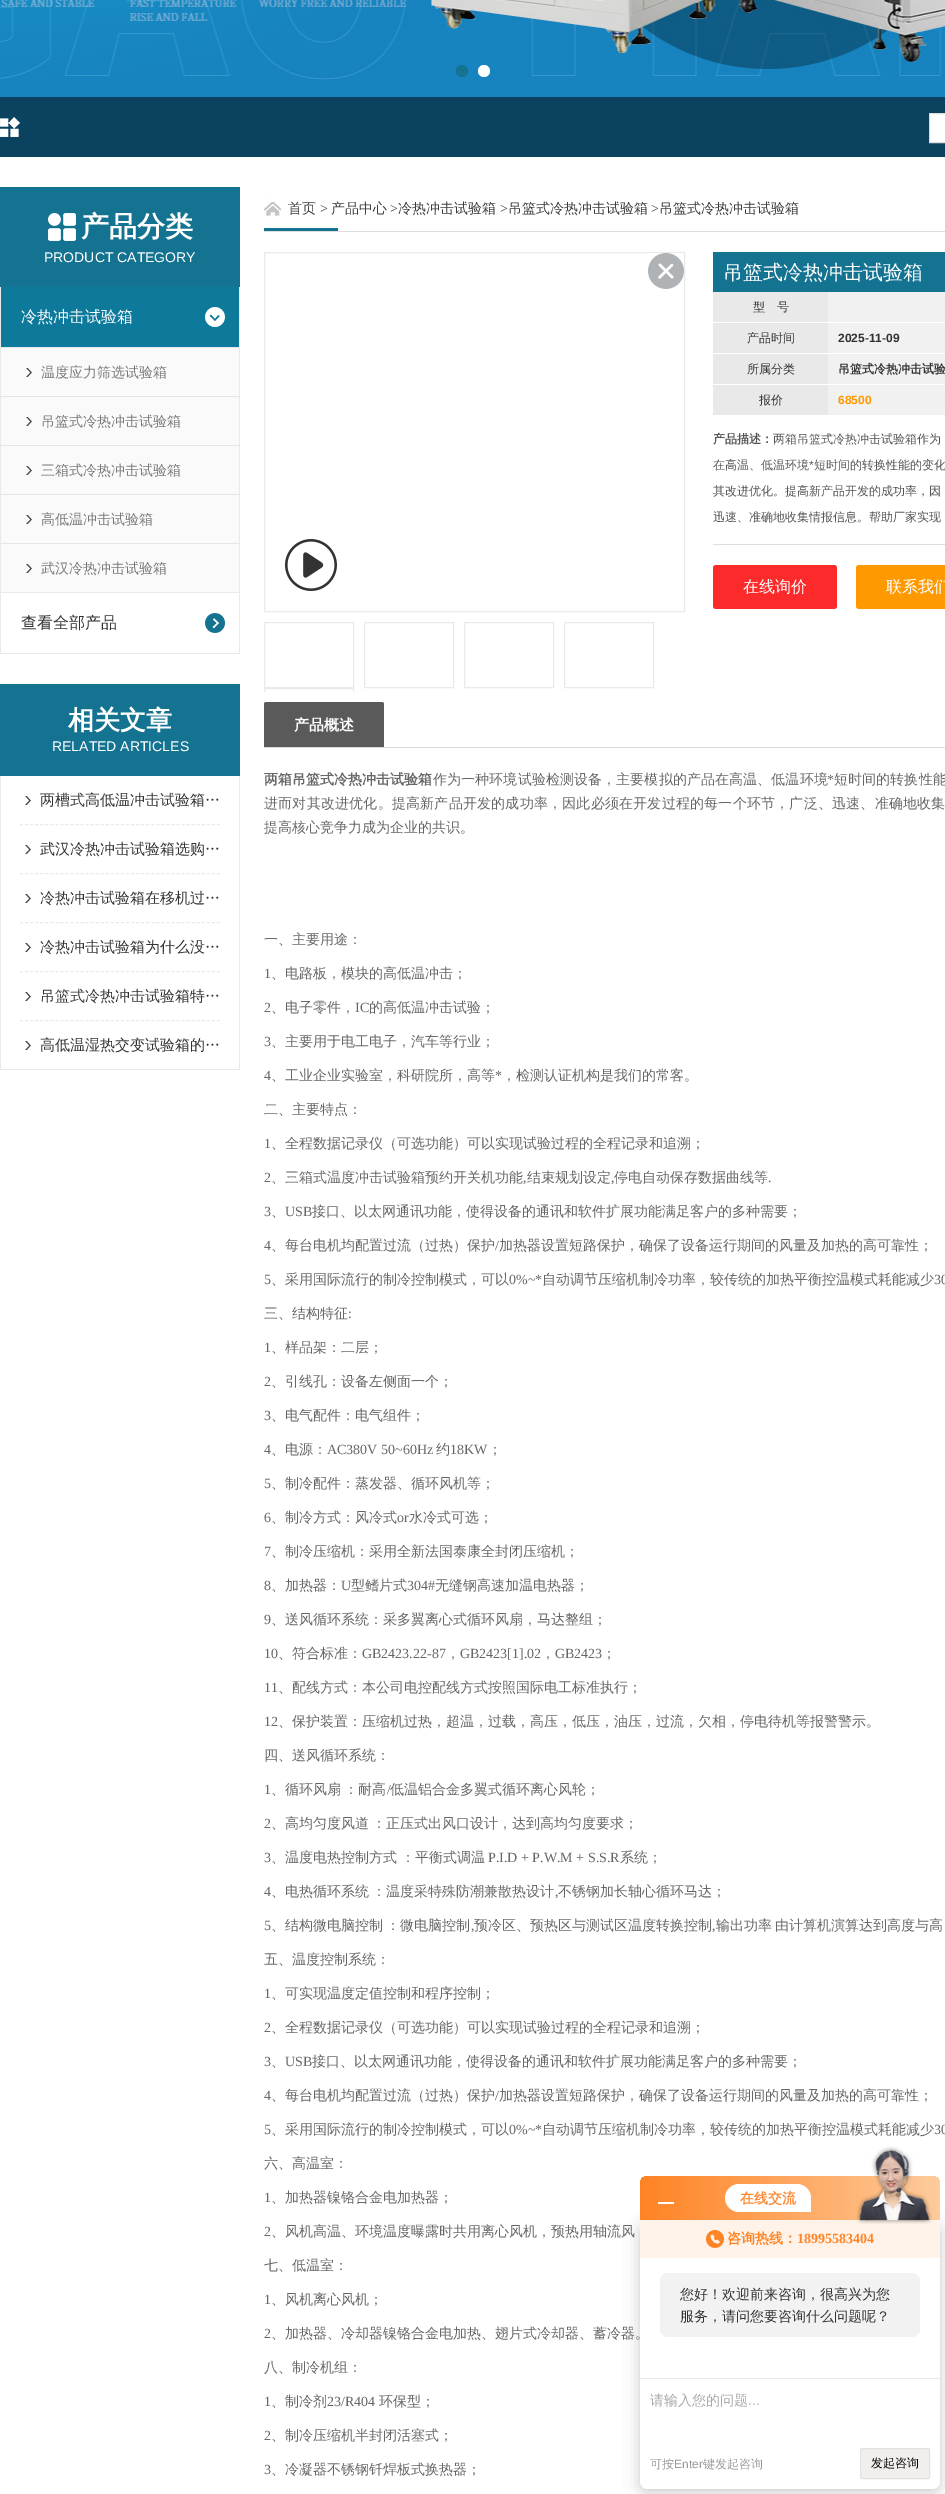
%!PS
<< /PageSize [945 2494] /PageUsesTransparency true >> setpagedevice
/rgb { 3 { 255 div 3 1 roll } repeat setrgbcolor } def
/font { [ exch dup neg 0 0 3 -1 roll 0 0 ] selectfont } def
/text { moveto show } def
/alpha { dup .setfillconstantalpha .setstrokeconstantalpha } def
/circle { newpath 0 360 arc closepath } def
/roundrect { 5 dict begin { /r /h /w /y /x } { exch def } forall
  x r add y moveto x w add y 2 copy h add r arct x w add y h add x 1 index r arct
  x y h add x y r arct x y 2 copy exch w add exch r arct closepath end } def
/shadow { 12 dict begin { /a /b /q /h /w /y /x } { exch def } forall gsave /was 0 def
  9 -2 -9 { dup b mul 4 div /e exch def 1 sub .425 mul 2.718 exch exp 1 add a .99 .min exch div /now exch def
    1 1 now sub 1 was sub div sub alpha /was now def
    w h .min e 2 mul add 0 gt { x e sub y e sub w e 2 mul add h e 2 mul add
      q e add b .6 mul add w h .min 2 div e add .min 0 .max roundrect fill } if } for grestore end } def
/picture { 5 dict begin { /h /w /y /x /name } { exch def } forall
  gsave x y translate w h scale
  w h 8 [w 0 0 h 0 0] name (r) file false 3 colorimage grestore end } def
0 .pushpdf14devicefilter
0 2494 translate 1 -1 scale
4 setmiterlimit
255 255 255 rgb
0 0 945 2494 rectfill
(img_01.rgb) 0 0 945 97 picture
20 115 145 rgb
462 71 6 circle fill
255 255 255 rgb
484 71 6 circle fill
11 66 95 rgb
0 97 945 60 rectfill
(img_02.rgb) 0 117 20 20 picture
255 255 255 rgb
929.5 113.5 moveto 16 0 rlineto 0 29 rlineto -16 0 rlineto closepath gsave fill grestore
222 222 222 rgb
stroke
20 115 145 rgb
0 187 240 100 rectfill
(img_03.rgb) 48 213 28 28 picture
234 234 234 rgb
239 287 1 367 rectfill
0 287 1 367 rectfill
1 592 238 1 rectfill
13 122 156 rgb
1 287 238 60 rectfill
(img_04.rgb) 205 307 20 20 picture
250 250 250 rgb
1 348 238 244 rectfill
(img_05.rgb) 26 368 6 9 picture
231 229 229 rgb
1 347 238 1 rectfill
(img_05.rgb) 26 417 6 9 picture
1 396 238 1 rectfill
(img_05.rgb) 26 466 6 9 picture
1 445 238 1 rectfill
(img_05.rgb) 26 515 6 9 picture
1 494 238 1 rectfill
(img_05.rgb) 26 564 6 9 picture
1 543 238 1 rectfill
234 234 234 rgb
1 653 238 1 rectfill
(img_06.rgb) 205 613 20 20 picture
20 115 145 rgb
0 684 240 92 rectfill
234 234 234 rgb
239 776 1 294 rectfill
0 1069 240 1 rectfill
0 776 1 294 rectfill
[3 2.05] 0 setdash
20 824.5 moveto 200 0 rlineto stroke
(img_07.rgb) 25 796 6 9 picture
20 873.5 moveto 200 0 rlineto stroke
(img_07.rgb) 25 845 6 9 picture
20 922.5 moveto 200 0 rlineto stroke
(img_07.rgb) 25 894 6 9 picture
20 971.5 moveto 200 0 rlineto stroke
(img_07.rgb) 25 943 6 9 picture
20 1020.5 moveto 200 0 rlineto stroke
(img_07.rgb) 25 992 6 9 picture
(img_07.rgb) 25 1041 6 9 picture
(img_08.rgb) 264 198 17 18 picture
222 222 222 rgb
264 231 681 1 rectfill
20 115 145 rgb
264 228 74 3 rectfill
234 234 234 rgb
[] 0 setdash
264.5 252.5 420 359 rectstroke
(img_09.rgb) 648 253 36 36 picture
(img_10.rgb) 285 539 52 52 picture
264.5 622.5 89 65 rectstroke
364.5 622.5 89 65 rectstroke
464.5 622.5 89 65 rectstroke
564.5 622.5 89 65 rectstroke
20 115 145 rgb
713 252 232 40 rectfill
241 241 241 rgb
828 292 117 123 rectfill
255 255 255 rgb
828 322 117 1 rectfill
233 233 234 rgb
713 292 115 30 rectfill
255 255 255 rgb
828 353 117 1 rectfill
233 233 234 rgb
713 323 115 30 rectfill
255 255 255 rgb
828 384 117 1 rectfill
233 233 234 rgb
713 354 115 30 rectfill
713 385 115 30 rectfill
223 223 223 rgb
713 544 232 1 rectfill
252 42 42 rgb
713 565 124 44 3 roundrect fill
255 153 0 rgb
856 565 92 44 3 roundrect fill
217 217 217 rgb
264 747 681 1 rectfill
90 90 90 rgb
266 702 moveto 116 0 rlineto 1 0 2 1 2 2 rcurveto 0 43 rlineto -120 0 rlineto 0 -43 rlineto 0 -1 1 -2 2 -2 rcurveto closepath fill
0 0 0 rgb
640 2224 300 269 8 8 0.2 shadow
gsave 648 2176 moveto 284 0 rlineto 4.5 0 8 3.5 8 8 rcurveto 0 36 rlineto -300 0 rlineto 0 -36 rlineto 0 -4.5 3.5 -8 8 -8 rcurveto closepath clip newpath
<< /ShadingType 2 /ColorSpace /DeviceRGB /Coords [640 2198 940 2198] /Extend [true true] /Function << /FunctionType 2 /Domain [0 1] /C0 [1 0.514 0.141] /C1 [0.996 0.796 0.612] /N 1 >> >> shfill grestore
255 255 255 rgb
658 2202 16 2 rectfill
739 2184 moveto 58 0 rlineto 7.5 0 14 6.5 14 14 rcurveto 0 14 rlineto -72 0 rlineto -7.5 0 -14 -6.5 -14 -14 rcurveto 0 -7.5 6.5 -14 14 -14 rcurveto closepath fill
640 2220 moveto 300 0 rlineto 0 261 rlineto 0 4.5 -3.5 8 -8 8 rcurveto -284 0 rlineto -4.5 0 -8 -3.5 -8 -8 rcurveto closepath fill
255 243 233 rgb
640 2220 300 38 rectfill
(img_11.rgb) 856 2146 76 78 picture
(img_12.rgb) 706 2230 18 18 picture
242 242 242 rgb
660 2273 260 64 8 roundrect fill
234 234 234 rgb
640 2378 300 1 rectfill
240 239 237 rgb
860.5 2448.5 69 30 1.5 roundrect gsave fill grestore
226 226 226 rgb
stroke
/WenQuanYiZenHei-Bold 28 font
255 255 255 rgb
(产品分类) 81 236 text
/LiberationSans-Regular 14 font
(PRODUCT CATEGORY) 44 262 text
/WenQuanYiZenHei-Medium 16 font
(冷热冲击试验箱) 21 322 text
/WenQuanYiZenHei-Medium 14 font
121 121 121 rgb
(温度应力筛选试验箱) 41 377 text
(吊篮式冷热冲击试验箱) 41 426 text
(三箱式冷热冲击试验箱) 41 475 text
(高低温冲击试验箱) 41 524 text
(武汉冷热冲击试验箱) 41 573 text
/WenQuanYiZenHei-Medium 16 font
51 51 51 rgb
(查看全部产品) 21 628 text
/WenQuanYiZenHei-Bold 26 font
255 255 255 rgb
(相关文章) 68 729 text
/LiberationSans-Regular 14 font
(RELATED ARTICLES) 52 751 text
/WenQuanYiZenHei-Medium 15 font
51 51 51 rgb
(两槽式高低温冲击试验箱…) 40 805 text
(武汉冷热冲击试验箱选购…) 40 854 text
(冷热冲击试验箱在移机过…) 40 903 text
(冷热冲击试验箱为什么没…) 40 952 text
(吊篮式冷热冲击试验箱特…) 40 1001 text
(高低温湿热交变试验箱的…) 40 1050 text
/WenQuanYiZenHei-Medium 14 font
59 59 59 rgb
(首页) 288 213 text
/LiberationSerif-Regular 14 font
(>) 320 213 text
/WenQuanYiZenHei-Medium 14 font
(产品中心) 331 213 text
/LiberationSerif-Regular 14 font
(>) 390 213 text
/WenQuanYiZenHei-Medium 14 font
(冷热冲击试验箱) 398 213 text
/LiberationSerif-Regular 14 font
(>) 500 213 text
/WenQuanYiZenHei-Medium 14 font
(吊篮式冷热冲击试验箱) 508 213 text
/LiberationSerif-Regular 14 font
(>) 651 213 text
/WenQuanYiZenHei-Medium 14 font
(吊篮式冷热冲击试验箱) 659 213 text
/WenQuanYiZenHei-Medium 20 font
255 255 255 rgb
(吊篮式冷热冲击试验箱) 723 279 text
/WenQuanYiZenHei-Medium 12 font
51 51 51 rgb
(型　号) 753 311 text
(产品时间) 747 342 text
/LiberationSans-Bold 12 font
(2025-11-09) 838 342 text
/WenQuanYiZenHei-Medium 12 font
(所属分类) 747 373 text
/WenQuanYiZenHei-Bold 12 font
(吊篮式冷热冲击试验) 838 373 text
/WenQuanYiZenHei-Medium 12 font
(报价) 759 404 text
/LiberationSans-Bold 12 font
255 153 0 rgb
(68500) 838 404 text
/WenQuanYiZenHei-Bold 12 font
85 85 85 rgb
(产品描述：) 713 443 text
/WenQuanYiZenHei-Medium 12 font
(两箱吊篮式冷热冲击试验箱作为) 773 443 text
(在高温、低温环境) 713 469 text
/LiberationSans-Regular 12 font
(*) 809 469 text
/WenQuanYiZenHei-Medium 12 font
(短时间的转换性能的变化) 814 469 text
(其改进优化。提高新产品开发的成功率，因) 713 495 text
(迅速、准确地收集情报信息。帮助厂家实现) 713 521 text
/WenQuanYiZenHei-Medium 16 font
255 255 255 rgb
(在线询价) 743 592 text
(联系我们) 886 592 text
/WenQuanYiZenHei-Bold 15 font
(产品概述) 294 730 text
gsave
264 622 421 70 rectclip
234 234 234 rgb
264.5 688.5 89 65 rectstroke
grestore
/WenQuanYiZenHei-Bold 14 font
102 102 102 rgb
(两箱) 264 784 text
(吊篮式冷热冲击试验箱) 292 784 text
/WenQuanYiZenHei-Medium 14 font
433 784 moveto 0.1 0 (作为一种环境试验检测设备，主要模拟的产品在高温、低温环境) ashow
/LiberationSerif-Regular 14 font
827 784 moveto 0.1 0 (*) ashow
/WenQuanYiZenHei-Medium 14 font
834 784 moveto 0.1 0 (短时间的转换性能) ashow
264 808 moveto 0.2 0 (进而对其改进优化。提高新产品开发的成功率，因此必须在开发过程的每一个环节，广泛、迅速、准确地收集) ashow
(提高核心竞争力成为企业的共识。) 264 832 text
(一、主要用途：) 264 944 text
/LiberationSerif-Regular 14 font
(1) 264 978 text
/WenQuanYiZenHei-Medium 14 font
(、电路板，模块的高低温冲击；) 271 978 text
/LiberationSerif-Regular 14 font
(2) 264 1012 text
/WenQuanYiZenHei-Medium 14 font
(、电子零件，) 271 1012 text
/LiberationSerif-Regular 14 font
(IC) 355 1012 text
/WenQuanYiZenHei-Medium 14 font
(的高低温冲击试验；) 369 1012 text
/LiberationSerif-Regular 14 font
(3) 264 1046 text
/WenQuanYiZenHei-Medium 14 font
(、主要用于电工电子，汽车等行业；) 271 1046 text
/LiberationSerif-Regular 14 font
(4) 264 1080 text
/WenQuanYiZenHei-Medium 14 font
(、工业企业实验室，科研院所，高等) 271 1080 text
/LiberationSerif-Regular 14 font
(*) 495 1080 text
/WenQuanYiZenHei-Medium 14 font
(，检测认证机构是我们的常客。) 502 1080 text
(二、主要特点：) 264 1114 text
/LiberationSerif-Regular 14 font
(1) 264 1148 text
/WenQuanYiZenHei-Medium 14 font
(、全程数据记录仪（可选功能）可以实现试验过程的全程记录和追溯；) 271 1148 text
/LiberationSerif-Regular 14 font
(2) 264 1182 text
/WenQuanYiZenHei-Medium 14 font
(、三箱式温度冲击试验箱预约开关机功能) 271 1182 text
(结束规划设定) 527 1182 text
(停电自动保存数据曲线等) 614 1182 text
/LiberationSerif-Regular 14 font
(,) 523 1182 text
(,) 611 1182 text
(.) 768 1182 text
(3) 264 1216 text
/WenQuanYiZenHei-Medium 14 font
(、) 271 1216 text
/LiberationSerif-Regular 14 font
(USB) 285 1216 text
/WenQuanYiZenHei-Medium 14 font
(接口、以太网通讯功能，使得设备的通讯和软件扩展功能满足客户的多种需要；) 312 1216 text
/LiberationSerif-Regular 14 font
(4) 264 1250 text
/WenQuanYiZenHei-Medium 14 font
(、每台电机均配置过流（过热）保护) 271 1250 text
/LiberationSerif-Regular 14 font
(/) 495 1250 text
/WenQuanYiZenHei-Medium 14 font
(加热器设置短路保护，确保了设备运行期间的风量及加热的高可靠性；) 499 1250 text
/LiberationSerif-Regular 14 font
(5) 264 1284 text
/WenQuanYiZenHei-Medium 14 font
(、采用国际流行的制冷控制模式，可以) 271 1284 text
/LiberationSerif-Regular 14 font
(0%~*) 509 1284 text
/WenQuanYiZenHei-Medium 14 font
(自动调节压缩机制冷功率，较传统的加热平衡控温模式耗能减少) 542 1284 text
/LiberationSerif-Regular 14 font
(30) 934 1284 text
/WenQuanYiZenHei-Medium 14 font
(三、结构特征) 264 1318 text
/LiberationSerif-Regular 14 font
(:) 348 1318 text
(1) 264 1352 text
/WenQuanYiZenHei-Medium 14 font
(、样品架：二层；) 271 1352 text
/LiberationSerif-Regular 14 font
(2) 264 1386 text
/WenQuanYiZenHei-Medium 14 font
(、引线孔：设备左侧面一个；) 271 1386 text
/LiberationSerif-Regular 14 font
(3) 264 1420 text
/WenQuanYiZenHei-Medium 14 font
(、电气配件：电气组件；) 271 1420 text
/LiberationSerif-Regular 14 font
(4) 264 1454 text
/WenQuanYiZenHei-Medium 14 font
(、电源：) 271 1454 text
/LiberationSerif-Regular 14 font
(AC380V 50~60Hz) 327 1454 text
/WenQuanYiZenHei-Medium 14 font
(约) 436 1454 text
/LiberationSerif-Regular 14 font
(18KW) 450 1454 text
/WenQuanYiZenHei-Medium 14 font
(；) 488 1454 text
/LiberationSerif-Regular 14 font
(5) 264 1488 text
/WenQuanYiZenHei-Medium 14 font
(、制冷配件：蒸发器、循环风机等；) 271 1488 text
/LiberationSerif-Regular 14 font
(6) 264 1522 text
/WenQuanYiZenHei-Medium 14 font
(、制冷方式：风冷式) 271 1522 text
/LiberationSerif-Regular 14 font
(or) 397 1522 text
/WenQuanYiZenHei-Medium 14 font
(水冷式可选；) 409 1522 text
/LiberationSerif-Regular 14 font
(7) 264 1556 text
/WenQuanYiZenHei-Medium 14 font
(、制冷压缩机：采用全新法国泰康全封闭压缩机；) 271 1556 text
/LiberationSerif-Regular 14 font
(8) 264 1590 text
/WenQuanYiZenHei-Medium 14 font
(、加热器：) 271 1590 text
/LiberationSerif-Regular 14 font
(U) 341 1590 text
/WenQuanYiZenHei-Medium 14 font
(型鳍片式) 351 1590 text
/LiberationSerif-Regular 14 font
(304#) 407 1590 text
/WenQuanYiZenHei-Medium 14 font
(无缝钢高速加温电热器；) 435 1590 text
/LiberationSerif-Regular 14 font
(9) 264 1624 text
/WenQuanYiZenHei-Medium 14 font
(、送风循环系统：采多翼离心式循环风扇，马达整组；) 271 1624 text
/LiberationSerif-Regular 14 font
(10) 264 1658 text
/WenQuanYiZenHei-Medium 14 font
(、符合标准：) 278 1658 text
/LiberationSerif-Regular 14 font
(GB2423.22-87) 362 1658 text
/WenQuanYiZenHei-Medium 14 font
(，) 446 1658 text
/LiberationSerif-Regular 14 font
(GB2423[1].02) 460 1658 text
/WenQuanYiZenHei-Medium 14 font
(，) 541 1658 text
/LiberationSerif-Regular 14 font
(GB2423) 555 1658 text
/WenQuanYiZenHei-Medium 14 font
(；) 602 1658 text
/LiberationSerif-Regular 14 font
(11) 264 1692 text
/WenQuanYiZenHei-Medium 14 font
(、配线方式：本公司电控配线方式按照国际电工标准执行；) 278 1692 text
/LiberationSerif-Regular 14 font
(12) 264 1726 text
/WenQuanYiZenHei-Medium 14 font
(、保护装置：压缩机过热，超温，过载，高压，低压，油压，过流，欠相，停电待机等报警警示。) 278 1726 text
(四、送风循环系统：) 264 1760 text
/LiberationSerif-Regular 14 font
(1) 264 1794 text
/WenQuanYiZenHei-Medium 14 font
271 1794 moveto -1 0 32 (、循环风扇 ：耐高) widthshow
/LiberationSerif-Regular 14 font
(/) 387 1794 text
/WenQuanYiZenHei-Medium 14 font
(低温铝合金多翼式循环离心风轮；) 390 1794 text
/LiberationSerif-Regular 14 font
(2) 264 1828 text
/WenQuanYiZenHei-Medium 14 font
271 1828 moveto -1 0 32 (、高均匀度风道 ：正压式出风口设计，达到高均匀度要求；) widthshow
/LiberationSerif-Regular 14 font
(3) 264 1862 text
/WenQuanYiZenHei-Medium 14 font
(、温度电热控制方式) 271 1862 text
(：平衡式调温) 401 1862 text
/LiberationSerif-Regular 14 font
(P.I.D + P.W.M + S.S.R) 488 1862 text
/WenQuanYiZenHei-Medium 14 font
(系统；) 620 1862 text
/LiberationSerif-Regular 14 font
(4) 264 1896 text
/WenQuanYiZenHei-Medium 14 font
271 1896 moveto -1 0 32 (、电热循环系统 ：温度采特殊防潮兼散热设计) widthshow
(不锈钢加长轴心循环马达；) 558 1896 text
/LiberationSerif-Regular 14 font
(,) 555 1896 text
(5) 264 1930 text
/WenQuanYiZenHei-Medium 14 font
271 1930 moveto -1 0 32 (、结构微电脑控制 ：微电脑控制) widthshow
/LiberationSerif-Regular 14 font
(,) 471 1930 text
/WenQuanYiZenHei-Medium 14 font
(预冷区、预热区与测试区温度转换控制) 474 1930 text
/LiberationSerif-Regular 14 font
(,) 712 1930 text
/WenQuanYiZenHei-Medium 14 font
716 1930 moveto -1 0 32 (输出功率 由计算机演算达到高度与高) widthshow
(五、温度控制系统：) 264 1964 text
/LiberationSerif-Regular 14 font
(1) 264 1998 text
/WenQuanYiZenHei-Medium 14 font
(、可实现温度定值控制和程序控制；) 271 1998 text
/LiberationSerif-Regular 14 font
(2) 264 2032 text
/WenQuanYiZenHei-Medium 14 font
(、全程数据记录仪（可选功能）可以实现试验过程的全程记录和追溯；) 271 2032 text
/LiberationSerif-Regular 14 font
(3) 264 2066 text
/WenQuanYiZenHei-Medium 14 font
(、) 271 2066 text
/LiberationSerif-Regular 14 font
(USB) 285 2066 text
/WenQuanYiZenHei-Medium 14 font
(接口、以太网通讯功能，使得设备的通讯和软件扩展功能满足客户的多种需要；) 312 2066 text
/LiberationSerif-Regular 14 font
(4) 264 2100 text
/WenQuanYiZenHei-Medium 14 font
(、每台电机均配置过流（过热）保护) 271 2100 text
/LiberationSerif-Regular 14 font
(/) 495 2100 text
/WenQuanYiZenHei-Medium 14 font
(加热器设置短路保护，确保了设备运行期间的风量及加热的高可靠性；) 499 2100 text
/LiberationSerif-Regular 14 font
(5) 264 2134 text
/WenQuanYiZenHei-Medium 14 font
(、采用国际流行的制冷控制模式，可以) 271 2134 text
/LiberationSerif-Regular 14 font
(0%~*) 509 2134 text
/WenQuanYiZenHei-Medium 14 font
(自动调节压缩机制冷功率，较传统的加热平衡控温模式耗能减少) 542 2134 text
/LiberationSerif-Regular 14 font
(30) 934 2134 text
/WenQuanYiZenHei-Medium 14 font
(六、高温室：) 264 2168 text
/LiberationSerif-Regular 14 font
(1) 264 2202 text
/WenQuanYiZenHei-Medium 14 font
(、加热器镍铬合金电加热器；) 271 2202 text
/LiberationSerif-Regular 14 font
(2) 264 2236 text
/WenQuanYiZenHei-Medium 14 font
(、风机高温、环境温度曝露时共用离心风机，预热用轴流风) 271 2236 text
(七、低温室：) 264 2270 text
/LiberationSerif-Regular 14 font
(1) 264 2304 text
/WenQuanYiZenHei-Medium 14 font
(、风机离心风机；) 271 2304 text
/LiberationSerif-Regular 14 font
(2) 264 2338 text
/WenQuanYiZenHei-Medium 14 font
(、加热器、冷却器镍铬合金电加热、翅片式冷却器、蓄冷器。) 271 2338 text
(八、制冷机组：) 264 2372 text
/LiberationSerif-Regular 14 font
(1) 264 2406 text
/WenQuanYiZenHei-Medium 14 font
(、制冷剂) 271 2406 text
/LiberationSerif-Regular 14 font
(23/R404) 327 2406 text
/WenQuanYiZenHei-Medium 14 font
(环保型；) 379 2406 text
/LiberationSerif-Regular 14 font
(2) 264 2440 text
/WenQuanYiZenHei-Medium 14 font
(、制冷压缩机半封闭活塞式；) 271 2440 text
/LiberationSerif-Regular 14 font
(3) 264 2474 text
/WenQuanYiZenHei-Medium 14 font
(、冷凝器不锈钢钎焊板式换热器；) 271 2474 text
/WenQuanYiZenHei-Bold 14 font
251 139 54 rgb
(在线交流) 740 2203 text
255 132 38 rgb
(咨询热线：) 727 2243 text
/LiberationSerif-Bold 14 font
(18995583404) 797 2243 text
/WenQuanYiZenHei-Medium 14 font
51 51 51 rgb
(您好！欢迎前来咨询，很高兴为您) 680 2299 text
(服务，请问您要咨询什么问题呢？) 680 2321 text
170 170 170 rgb
(请输入您的问题) 650 2405 text
/LiberationSans-Regular 14 font
(...) 748 2405 text
/WenQuanYiZenHei-Medium 12 font
153 153 153 rgb
(可按) 650 2468 text
/LiberationSans-Regular 12 font
(Enter) 674 2468 text
/WenQuanYiZenHei-Medium 12 font
(键发起咨询) 703 2468 text
0 0 0 rgb
(发起咨询) 871 2467 text
.poppdf14devicefilter showpage
